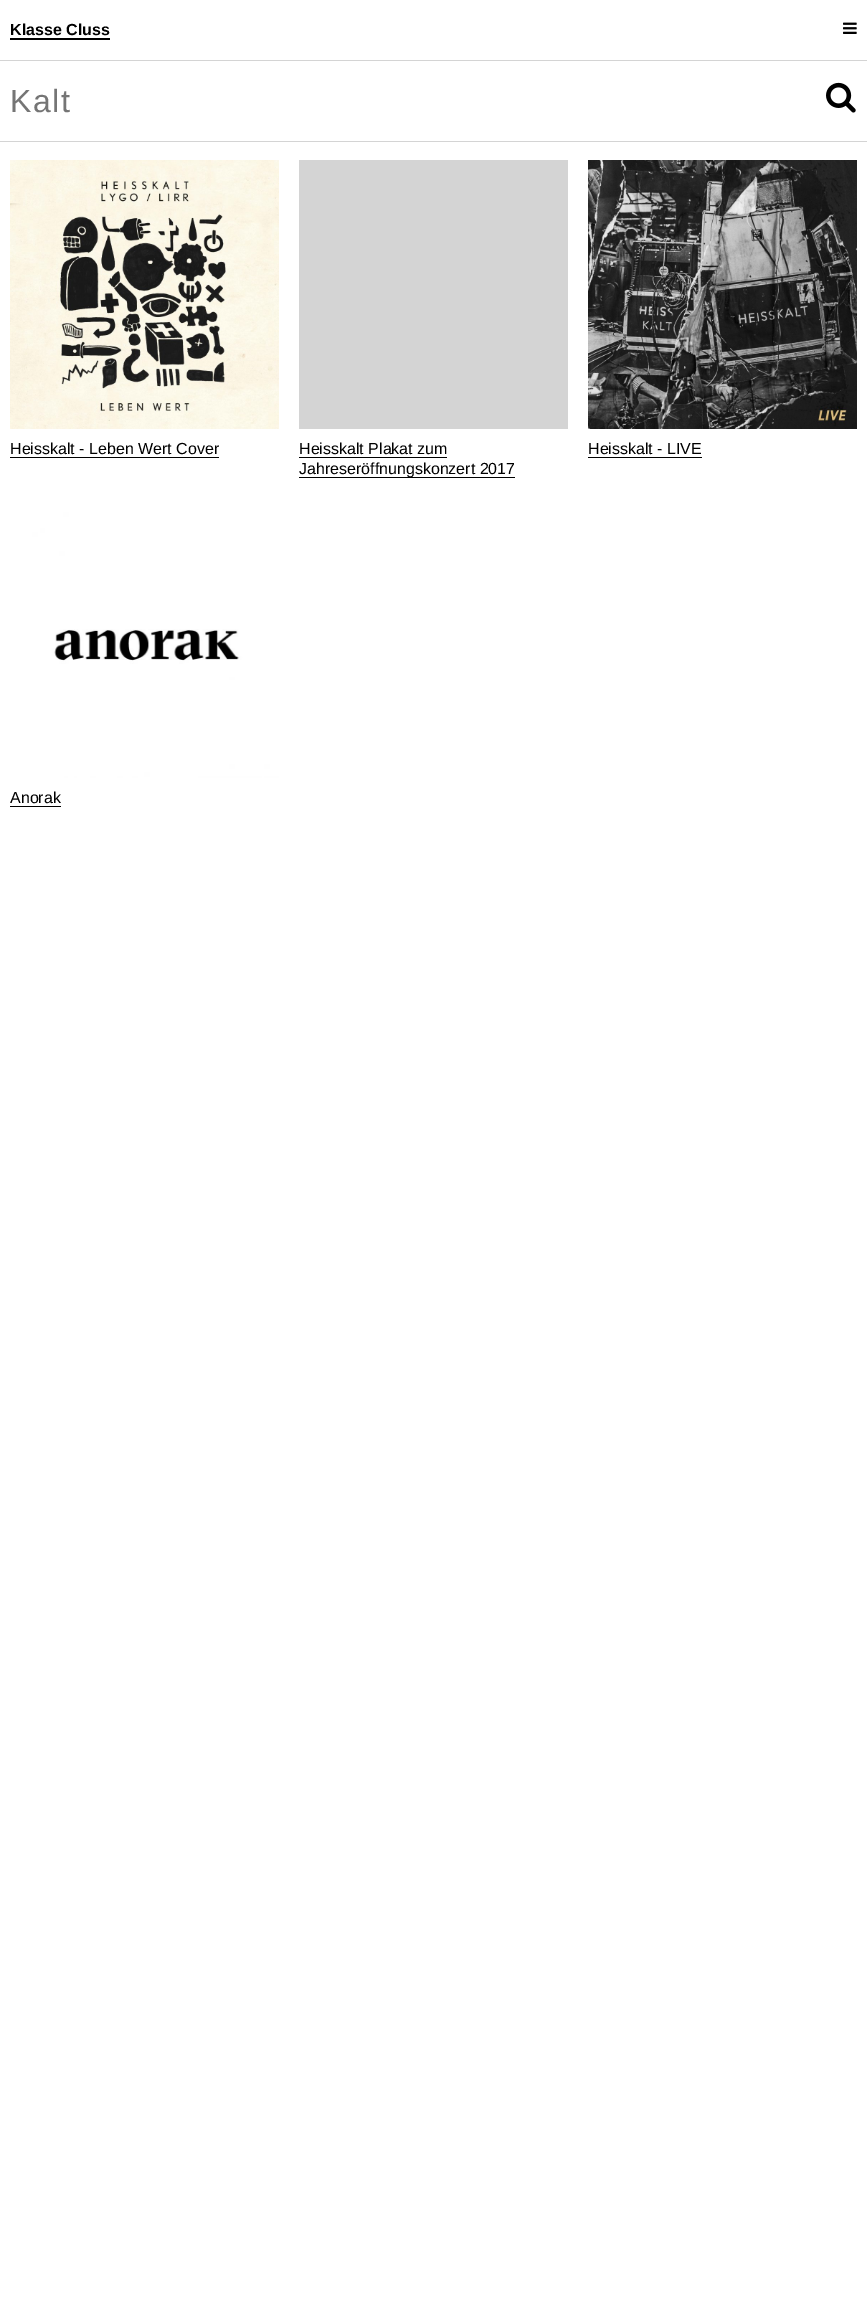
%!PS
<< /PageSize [867 2301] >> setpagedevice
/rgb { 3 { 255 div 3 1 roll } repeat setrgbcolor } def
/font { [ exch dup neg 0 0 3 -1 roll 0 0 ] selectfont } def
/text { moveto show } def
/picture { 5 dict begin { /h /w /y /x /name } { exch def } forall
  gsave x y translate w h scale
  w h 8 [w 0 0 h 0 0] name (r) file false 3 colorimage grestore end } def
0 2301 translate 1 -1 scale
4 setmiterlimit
255 255 255 rgb
0 0 867 2301 rectfill
212 212 212 rgb
0 60 867 1 rectfill
0 0 0 rgb
10 38 100 2 rectfill
(img_01.rgb) 843 22 14 12 picture
212 212 212 rgb
0 141 867 1 rectfill
(img_02.rgb) 826 82 30 31 picture
(img_03.rgb) 10 160 269 269 picture
0 0 0 rgb
10 457 209 1 rectfill
212 212 212 rgb
299 160 269 269 rectfill
0 0 0 rgb
299 457 148 1 rectfill
299 477 216 1 rectfill
(img_04.rgb) 588 160 269 269 picture
588 457 114 1 rectfill
(img_05.rgb) 10 509 269 269 picture
10 806 51 1 rectfill
/LiberationSans-Bold 16 font
(Klasse Cluss) 10 35 text
/LiberationSans-Regular 32 font
117 117 117 rgb
10 112 moveto 1.5 0 (Kalt) ashow
/LiberationSans-Regular 16 font
0 0 0 rgb
(Heisskalt - Leben Wert Cover) 10 454 text
(Heisskalt Plakat zum) 299 454 text
(Jahreseröffnungskonzert 2017) 299 474 text
(Heisskalt - LIVE) 588 454 text
(Anorak) 10 803 text
showpage
